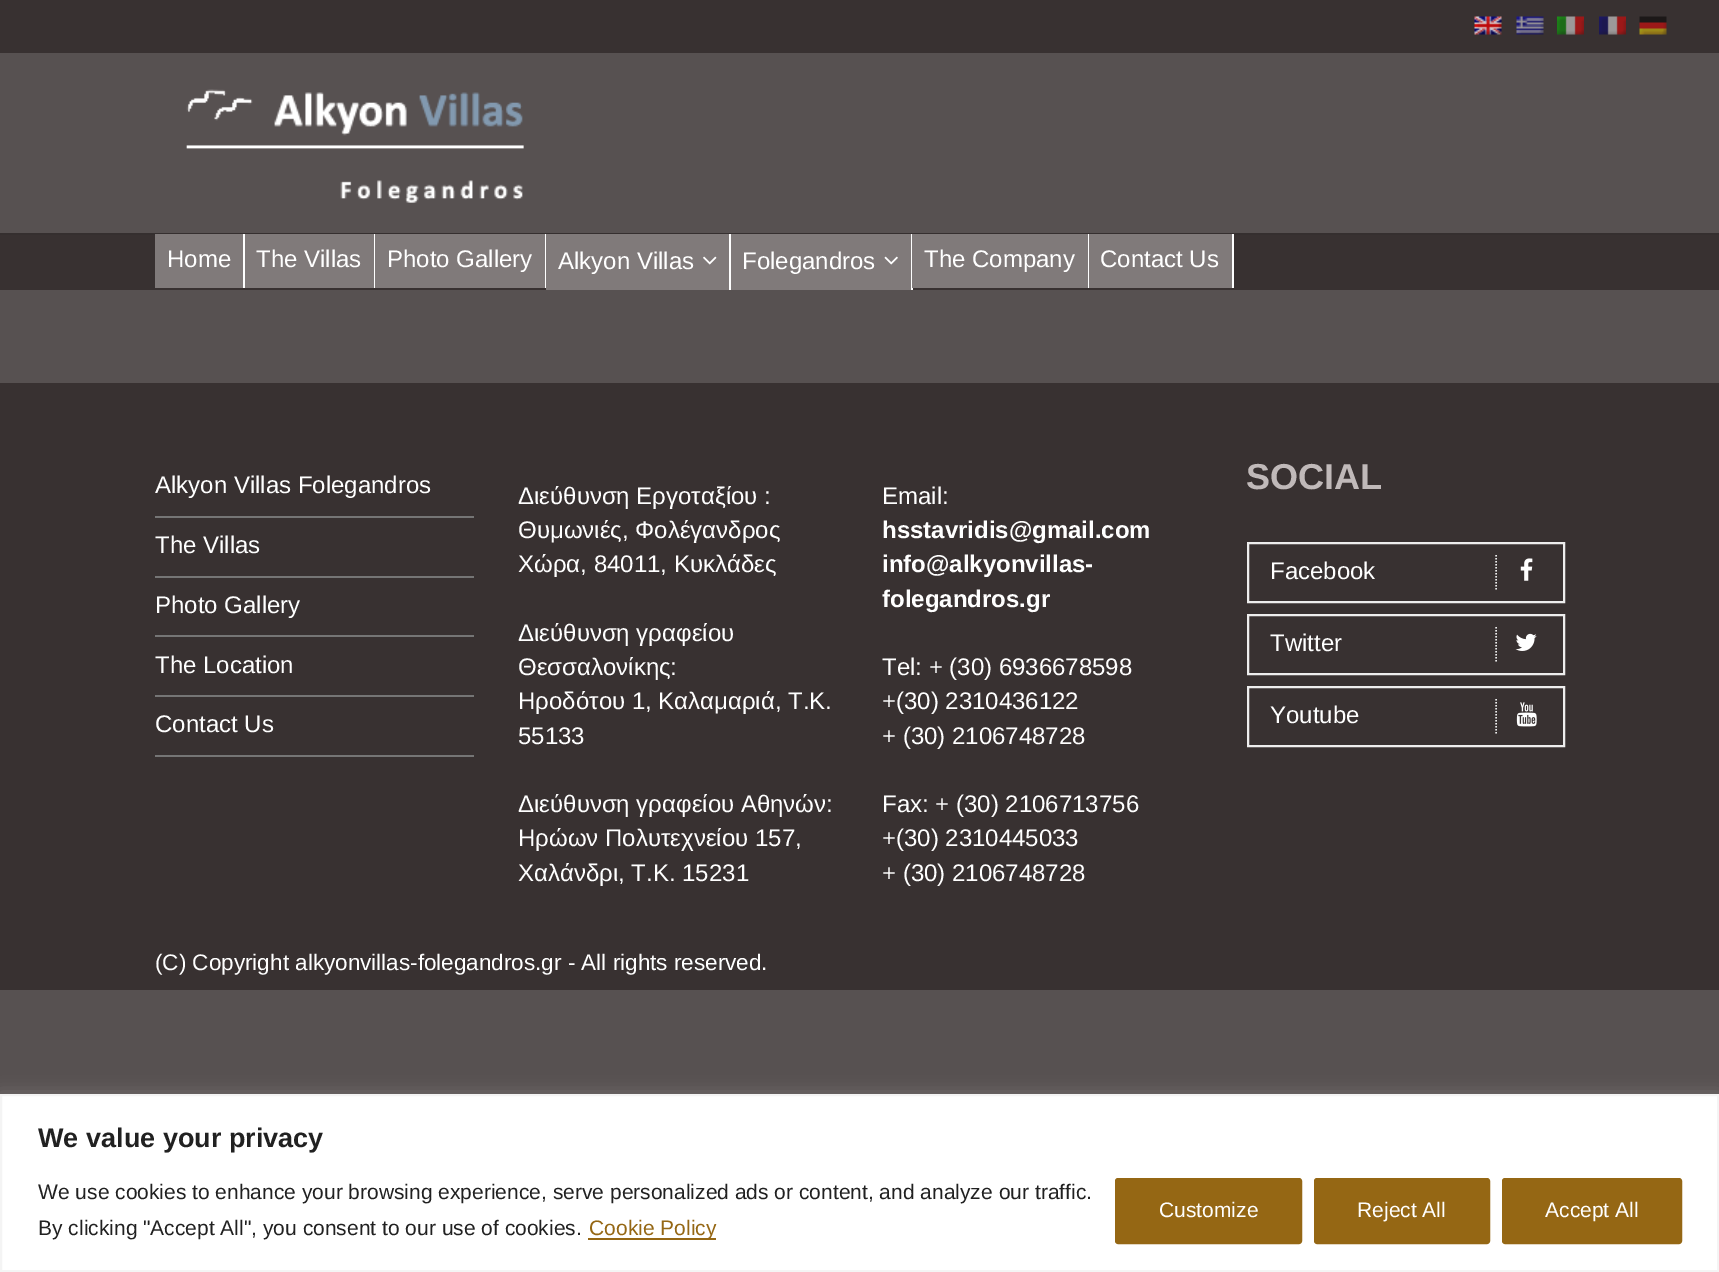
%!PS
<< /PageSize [1719 1272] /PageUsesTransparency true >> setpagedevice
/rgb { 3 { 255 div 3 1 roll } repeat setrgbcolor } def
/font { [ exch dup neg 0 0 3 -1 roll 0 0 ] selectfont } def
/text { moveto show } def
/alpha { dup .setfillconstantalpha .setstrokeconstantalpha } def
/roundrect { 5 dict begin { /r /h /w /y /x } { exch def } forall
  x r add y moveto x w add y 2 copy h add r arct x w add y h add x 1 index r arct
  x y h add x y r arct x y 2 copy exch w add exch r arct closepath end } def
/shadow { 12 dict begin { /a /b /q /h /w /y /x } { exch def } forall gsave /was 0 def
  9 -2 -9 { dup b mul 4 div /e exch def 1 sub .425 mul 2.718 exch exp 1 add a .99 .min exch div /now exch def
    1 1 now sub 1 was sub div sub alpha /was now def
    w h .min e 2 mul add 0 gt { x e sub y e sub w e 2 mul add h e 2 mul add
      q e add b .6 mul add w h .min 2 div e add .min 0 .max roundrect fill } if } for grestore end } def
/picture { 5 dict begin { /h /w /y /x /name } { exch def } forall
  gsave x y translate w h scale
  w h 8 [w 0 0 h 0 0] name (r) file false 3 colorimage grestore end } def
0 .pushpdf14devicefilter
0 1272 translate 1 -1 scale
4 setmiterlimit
87 81 81 rgb
0 0 1719 1272 rectfill
56 49 49 rgb
0 0 1719 53 rectfill
(img_01.rgb) 1474 16 28 19 picture
(img_02.rgb) 1516 16 28 19 picture
(img_03.rgb) 1557 16 27 19 picture
(img_04.rgb) 1599 16 27 19 picture
(img_05.rgb) 1639 16 28 19 picture
(img_06.rgb) 186 89 338 114 picture
0 235 1719 55 rectfill
53 47 47 rgb
0 233 1719 2 rectfill
128 122 122 rgb
155 234 88 54 rectfill
255 255 255 rgb
243 234 2 54 rectfill
128 122 122 rgb
245 234 129 54 rectfill
255 255 255 rgb
374 234 1 54 rectfill
128 122 122 rgb
375 234 170 54 rectfill
255 255 255 rgb
545 234 1 54 rectfill
128 122 122 rgb
546 234 183 56 rectfill
255 255 255 rgb
729 234 2 56 rectfill
(img_07.rgb) 703 256 14 9 picture
128 122 122 rgb
731 234 180 56 rectfill
255 255 255 rgb
911 234 2 56 rectfill
(img_08.rgb) 884 256 14 9 picture
128 122 122 rgb
912 234 176 54 rectfill
255 255 255 rgb
1088 234 1 54 rectfill
128 122 122 rgb
1089 234 143 54 rectfill
255 255 255 rgb
1232 234 2 54 rectfill
56 49 49 rgb
0 383 1719 607 rectfill
117 117 117 rgb
155 516 319 2 rectfill
155 576 319 2 rectfill
155 635 319 2 rectfill
155 695 319 2 rectfill
155 755 319 2 rectfill
238 238 238 rgb
2 setlinewidth
1248 543 316 59 rectstroke
1.5 setlinewidth
[1.5 1.5] 0 setdash
1496 555 moveto 0 34.5 rlineto stroke
(img_09.rgb) 1520 558 13 23 picture
2 setlinewidth
[] 0 setdash
1248 615 316 59 rectstroke
1.5 setlinewidth
[1.5 1.5] 0 setdash
1496 627 moveto 0 34.5 rlineto stroke
(img_10.rgb) 1515 633 22 18 picture
2 setlinewidth
[] 0 setdash
1248 687 316 59 rectstroke
1.5 setlinewidth
[1.5 1.5] 0 setdash
1496 699 moveto 0 34.5 rlineto stroke
(img_11.rgb) 1516 702 21 25 picture
172 171 171 rgb
0 1092 1719 179 0 7.5 0.3 shadow
255 255 255 rgb
1 1095 moveto 1717 0 rlineto 0 176 rlineto -1717 0 rlineto closepath gsave fill grestore
244 244 244 rgb
2 setlinewidth
[] 0 setdash
stroke
149 103 20 rgb
588 1238 128 2 rectfill
1116.5 1179.5 184 63 1.5 roundrect gsave fill grestore
3 setlinewidth
stroke
1315.5 1179.5 173 63 1.5 roundrect gsave fill grestore
stroke
1503.5 1179.5 177 63 1.5 roundrect gsave fill grestore
stroke
/LiberationSans-Regular 24 font
255 255 255 rgb
(Home) 167 267 text
(The Villas) 256 267 text
(Photo Gallery) 387 267 text
(Alkyon Villas) 558 269 text
(Folegandros) 742 269 text
(The Company) 924 267 text
(Contact Us) 1100 267 text
(Alkyon Villas Folegandros) 155 493 text
(The Villas) 155 553 text
(Photo Gallery) 155 613 text
(The Location) 155 673 text
(Contact Us) 155 732 text
(Διεύθυνση Εργοταξίου :) 518 504 text
(Θυμωνιές, Φολέγανδρος) 518 538 text
(Χώρα, 84011, Κυκλάδες) 518 572 text
(Διεύθυνση γραφείου) 518 641 text
(Θεσσαλονίκης:) 518 675 text
(Ηροδότου 1, Καλαμαριά, T.K.) 518 709 text
(55133) 518 744 text
(Διεύθυνση γραφείου Αθηνών:) 518 812 text
(Ηρώων Πολυτεχνείου 157,) 518 846 text
(Χαλάνδρι, Τ.Κ. 15231) 518 881 text
(Email:) 882 504 text
/LiberationSans-Bold 24 font
(hsstavridis@gmail.com) 882 538 text
(info@alkyonvillas-) 882 572 text
(folegandros.gr) 882 607 text
/LiberationSans-Regular 24 font
(Tel: + \(30\) 6936678598) 882 675 text
(+\(30\) 2310436122) 882 709 text
(+ \(30\) 2106748728) 882 744 text
(Fax: + \(30\) 2106713756) 882 812 text
(+\(30\) 2310445033) 882 846 text
(+ \(30\) 2106748728) 882 881 text
/LiberationSans-Bold 36 font
192 185 185 rgb
(SOCIAL) 1246 489 text
/LiberationSans-Regular 24 font
255 255 255 rgb
(Facebook) 1270 579 text
(Twitter) 1270 651 text
(Youtube) 1270 723 text
/LiberationSans-Regular 22.5 font
(\(C\) Copyright alkyonvillas-folegandros.gr - All rights reserved.) 155 970 text
/LiberationSans-Bold 27 font
33 33 33 rgb
(We value your privacy) 38 1147 text
/LiberationSans-Regular 21 font
(We use cookies to enhance your browsing experience, serve personalized ads or content, and analyze our traffic.) 38 1199 text
(By clicking "Accept All", you consent to our use of cookies.) 38 1235 text
149 103 20 rgb
(Cookie Policy) 589 1235 text
255 255 255 rgb
(Customize) 1159 1217 text
(Reject All) 1357 1217 text
(Accept All) 1545 1217 text
.poppdf14devicefilter showpage
